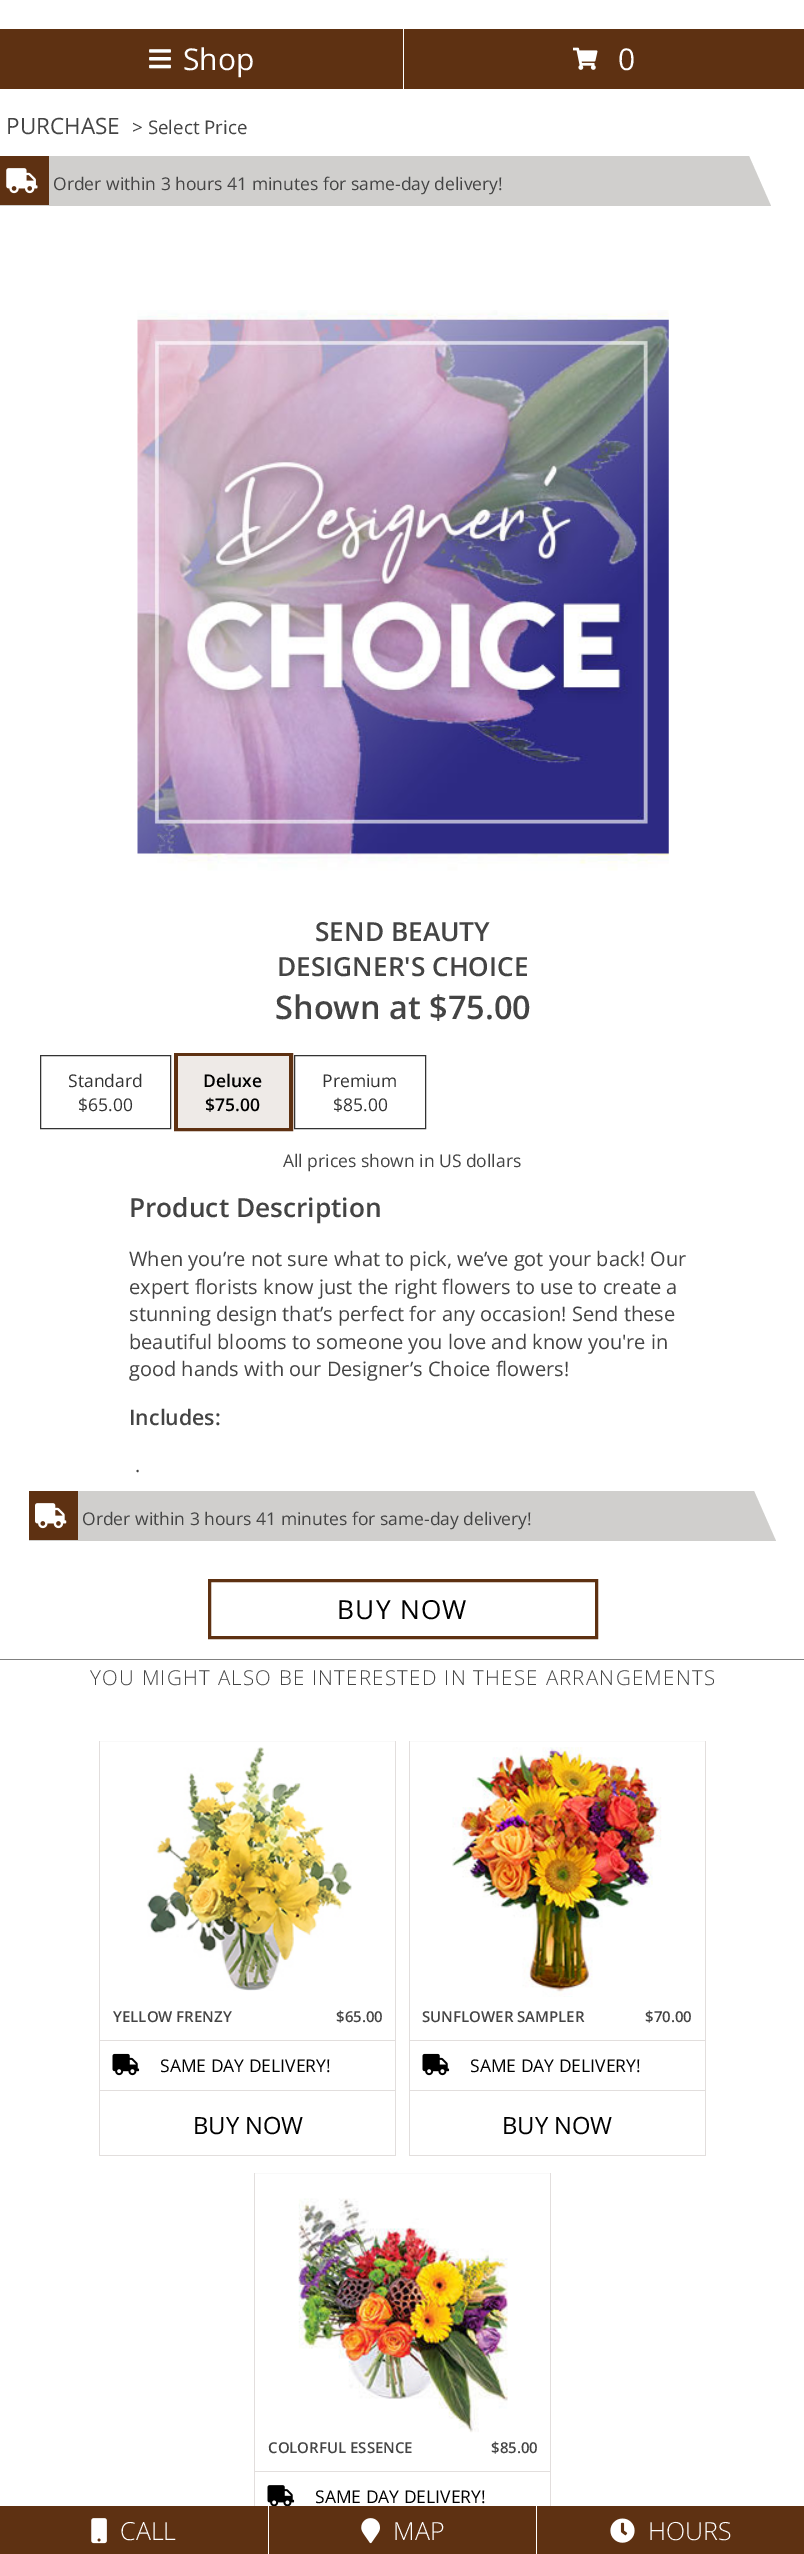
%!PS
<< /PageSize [804 2554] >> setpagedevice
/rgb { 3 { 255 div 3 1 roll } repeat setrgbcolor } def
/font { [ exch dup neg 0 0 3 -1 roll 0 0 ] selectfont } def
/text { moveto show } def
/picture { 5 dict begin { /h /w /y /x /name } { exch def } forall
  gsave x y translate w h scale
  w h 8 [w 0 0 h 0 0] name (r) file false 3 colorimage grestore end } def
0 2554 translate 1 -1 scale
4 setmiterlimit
255 255 255 rgb
0 0 804 2554 rectfill
94 49 18 rgb
0 29 403 60 rectfill
(img_01.rgb) 149 49 22 20 picture
404 29 400 60 rectfill
(img_02.rgb) 573 47 25 23 picture
208 207 205 rgb
771 206 moveto -771 0 rlineto 0 -50 rlineto 749 0 rlineto closepath fill
94 49 18 rgb
0 156 49 49 rectfill
(img_03.rgb) 6 168 32 26 picture
(img_04.rgb) 137 310 532 561 picture
51 51 51 rgb
40.5 1055.5 130 73 rectstroke
94 49 18 rgb
4 setlinewidth
176 1055 115 74 rectstroke
238 234 231 rgb
178 1056 111 72 rectfill
51 51 51 rgb
1 setlinewidth
294.5 1055.5 131 73 rectstroke
208 207 205 rgb
776 1541 moveto -747 0 rlineto 0 -50 rlineto 725 0 rlineto closepath fill
94 49 18 rgb
29 1491 49 49 rectfill
(img_05.rgb) 35 1503 32 26 picture
3 setlinewidth
209.5 1580.5 387 57 rectstroke
128 128 128 rgb
0 1659 804 1 rectfill
249 249 249 rgb
99 1741 297 1 rectfill
226 222 221 rgb
395 1741 1 415 rectfill
99 2155 297 1 rectfill
99 1741 1 415 rectfill
(img_06.rgb) 147 1747 205 244 picture
100 2040 295 1 rectfill
(img_07.rgb) 112 2053 28 23 picture
100 2090 295 1 rectfill
249 249 249 rgb
409 1741 297 1 rectfill
226 222 221 rgb
705 1741 1 415 rectfill
409 2155 297 1 rectfill
409 1741 1 415 rectfill
(img_08.rgb) 452 1747 210 250 picture
410 2040 295 1 rectfill
(img_07.rgb) 422 2053 28 23 picture
410 2090 295 1 rectfill
249 249 249 rgb
254 2173 297 1 rectfill
226 222 221 rgb
550 2173 1 333 rectfill
254 2173 1 333 rectfill
(img_09.rgb) 298 2198 210 235 picture
255 2471 295 1 rectfill
(img_10.rgb) 267 2485 28 21 picture
94 49 18 rgb
0 2506 268 48 rectfill
(img_11.rgb) 91 2518 16 26 picture
269 2506 267 48 rectfill
(img_12.rgb) 361 2518 19 26 picture
537 2506 267 48 rectfill
(img_13.rgb) 610 2518 25 25 picture
/OpenSans-Regular 30 font
255 255 255 rgb
(Shop) 183 70 text
(0) 618 70 text
/OpenSans-Regular 22.5 font
68 68 68 rgb
(PURCHASE) 6 134 text
/OpenSans-Regular 18.75 font
(> Select Price) 132 134 text
/OpenSans-Regular 17.5 font
(Order within 3 hours 41 minutes for same-day delivery!) 53 190 text
/OpenSans-SemiBold 26.25 font
(SEND BEAUTY) 315 941 text
(DESIGNER'S CHOICE) 277 976 text
/OpenSans-SemiBold 32.5 font
(Shown at $75.00) 275 1019 text
/OpenSans-Regular 17.5 font
51 51 51 rgb
(Standard) 68 1087 text
($65.00) 78 1111 text
/OpenSans-SemiBold 17.5 font
0 0 0 rgb
(Deluxe) 203 1087 text
($75.00) 205 1111 text
/OpenSans-Regular 17.5 font
51 51 51 rgb
(Premium) 322 1087 text
($85.00) 333 1111 text
68 68 68 rgb
(All prices shown in US dollars) 283 1167 text
/OpenSans-SemiBold 26.25 font
(Product Description) 129 1217 text
/OpenSans-Regular 20 font
(When you’re not sure what to pick, we’ve got your back! Our) 129 1266 text
(expert florists know just the right flowers to use to create a) 129 1294 text
(stunning design that’s perfect for any occasion! Send these) 129 1321 text
(beautiful blooms to someone you love and know you're in) 129 1349 text
(good hands with our Designer’s Choice flowers!) 129 1376 text
/OpenSans-SemiBold 21.25 font
(Includes:) 129 1425 text
/OpenSans-Regular 20 font
(.) 135 1472 text
/OpenSans-Regular 17.5 font
(Order within 3 hours 41 minutes for same-day delivery!) 82 1525 text
/OpenSans-Regular 26.25 font
0 0 0 rgb
337 1619 moveto 1.25 0 (BUY NOW) ashow
/OpenSans-Light 20.5 font
68 68 68 rgb
90 1685 moveto 1.25 0 (YOU MIGHT ALSO BE INTERESTED IN THESE ARRANGEMENTS) ashow
/OpenSans-SemiBold 15 font
(YELLOW FRENZY) 113 2022 text
($65.00) 336 2022 text
/OpenSans-Regular 17.5 font
0 0 0 rgb
(SAME DAY DELIVERY!) 160 2072 text
/OpenSans-Regular 23.75 font
(BUY NOW) 193 2134 text
/OpenSans-SemiBold 15 font
68 68 68 rgb
(SUNFLOWER SAMPLER) 422 2022 text
($70.00) 645 2022 text
/OpenSans-Regular 17.5 font
0 0 0 rgb
(SAME DAY DELIVERY!) 470 2072 text
/OpenSans-Regular 23.75 font
(BUY NOW) 502 2134 text
/OpenSans-SemiBold 15 font
68 68 68 rgb
(COLORFUL ESSENCE) 268 2453 text
($85.00) 491 2453 text
/OpenSans-Regular 17.5 font
0 0 0 rgb
(SAME DAY DELIVERY!) 315 2503 text
/OpenSans-Light 25 font
255 255 255 rgb
(CALL) 120 2540 text
(MAP) 393 2540 text
(HOURS) 648 2540 text
showpage
